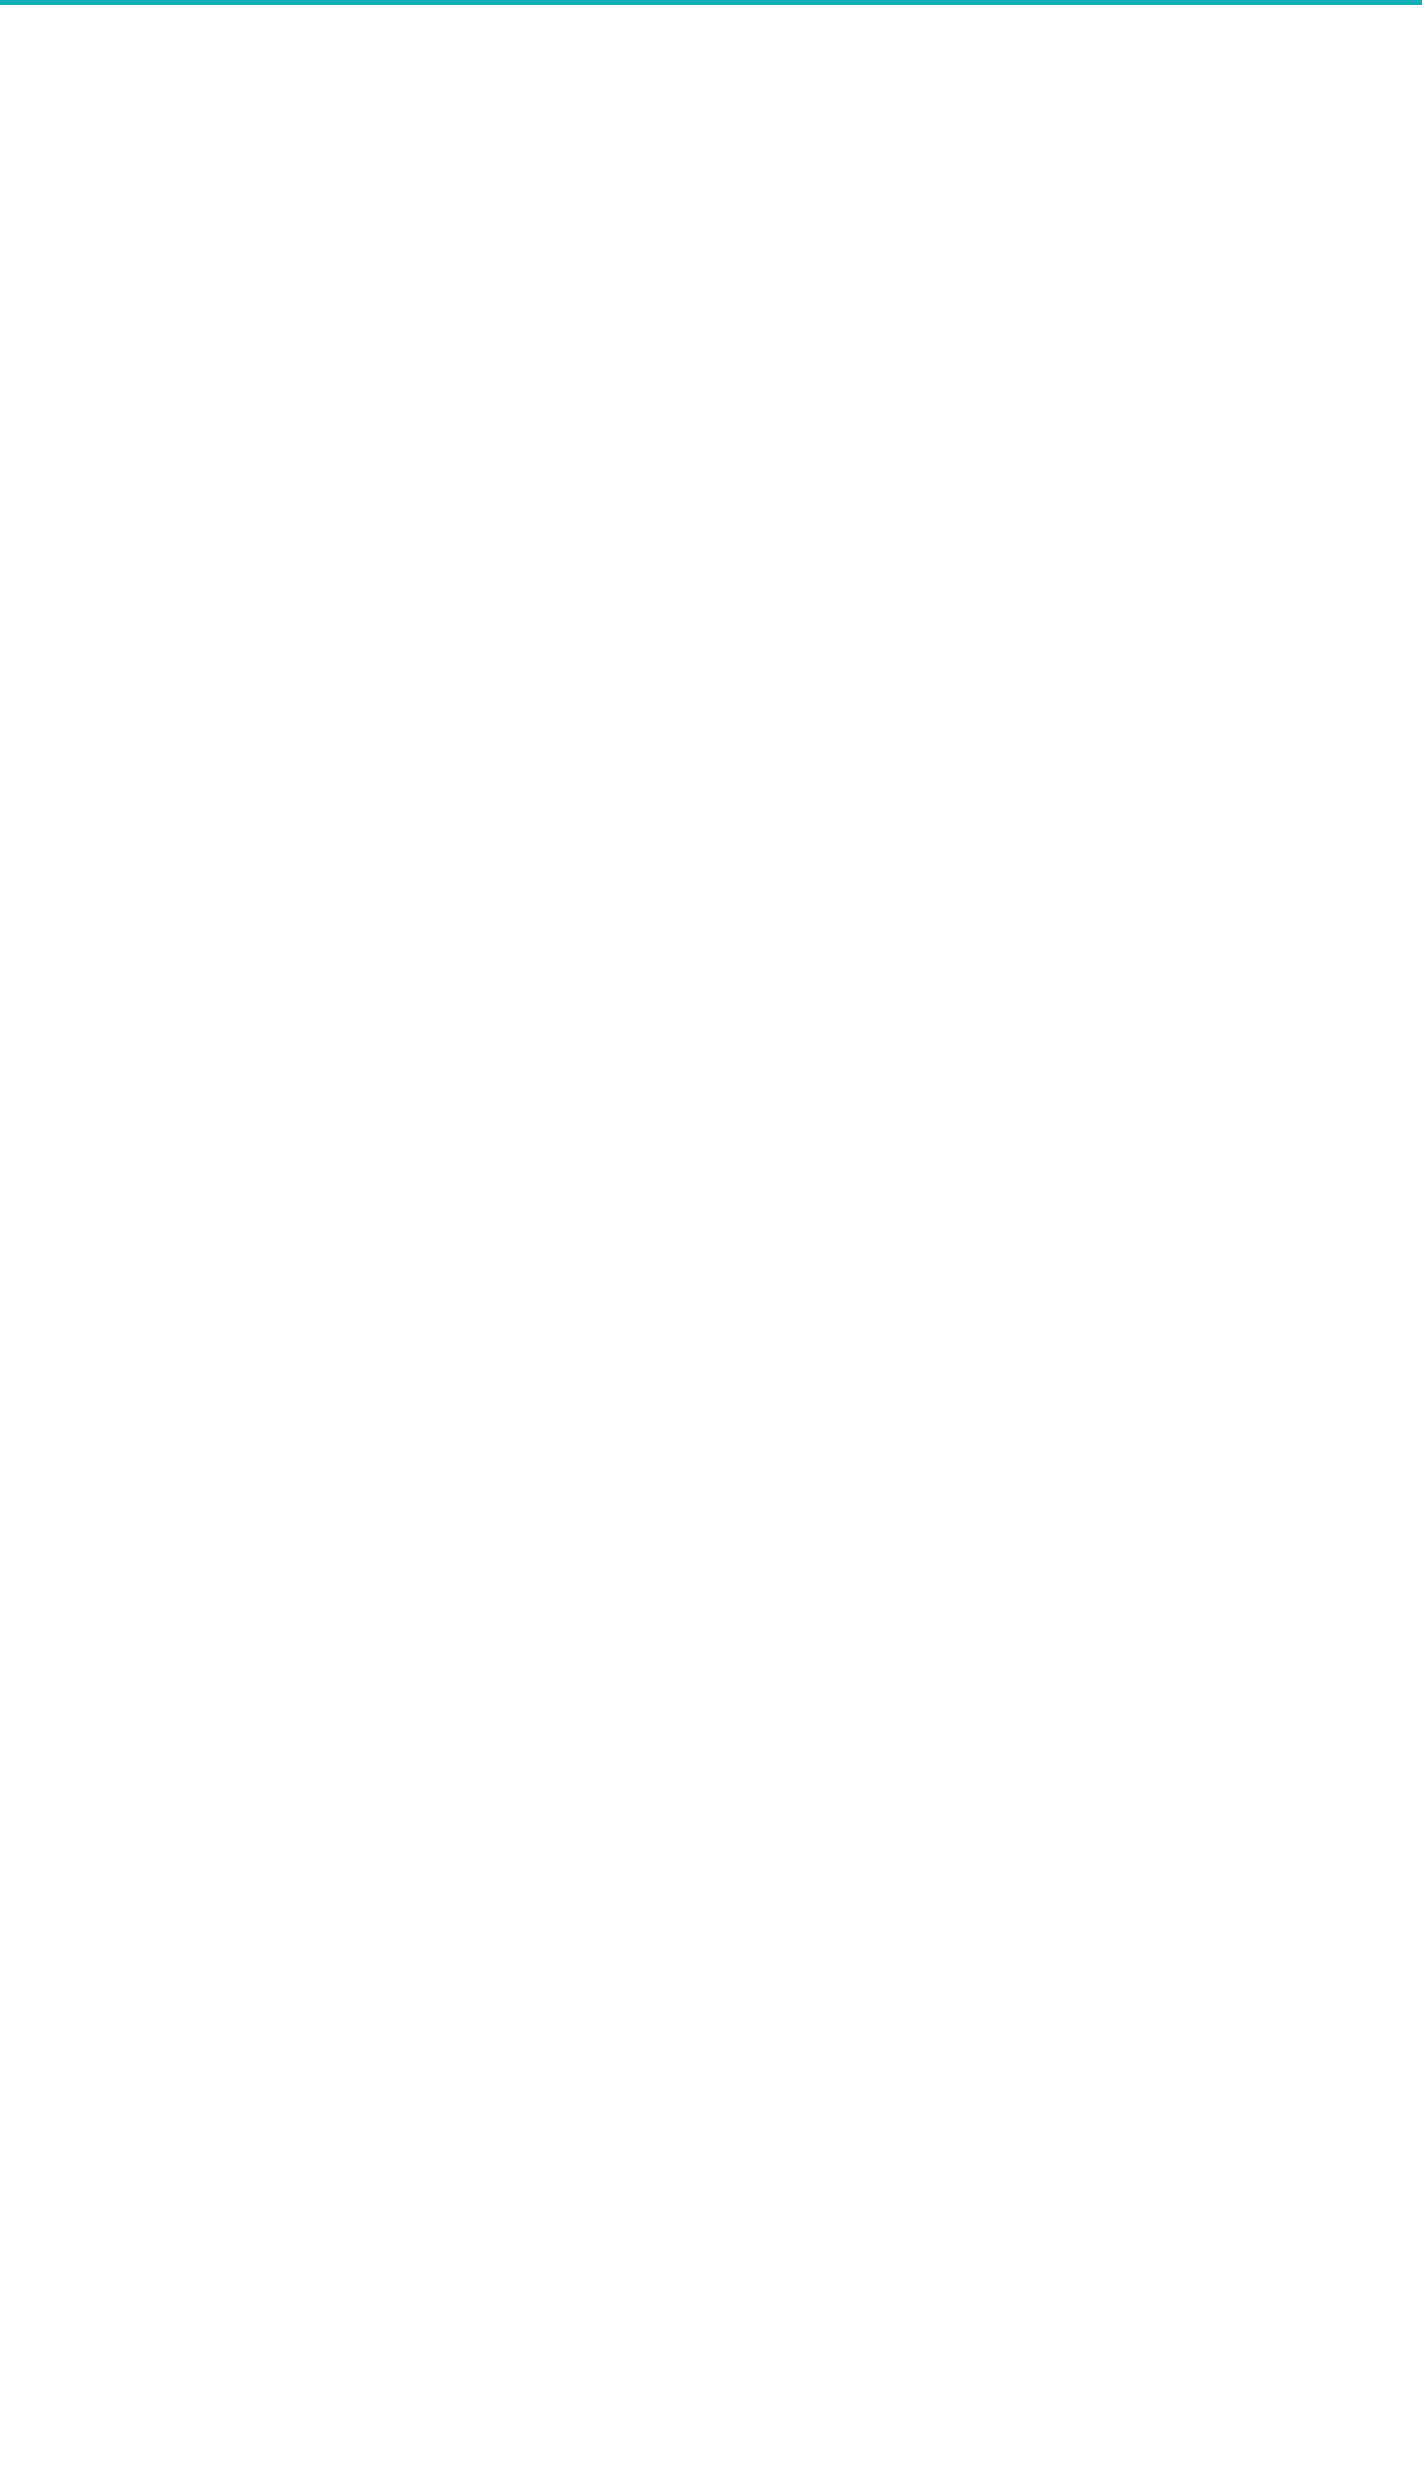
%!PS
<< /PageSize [1422 2482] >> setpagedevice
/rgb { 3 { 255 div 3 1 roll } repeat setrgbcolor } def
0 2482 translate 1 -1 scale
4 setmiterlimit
255 255 255 rgb
0 0 1422 2482 rectfill
16 176 184 rgb
0 0 1422 5 rectfill
showpage
